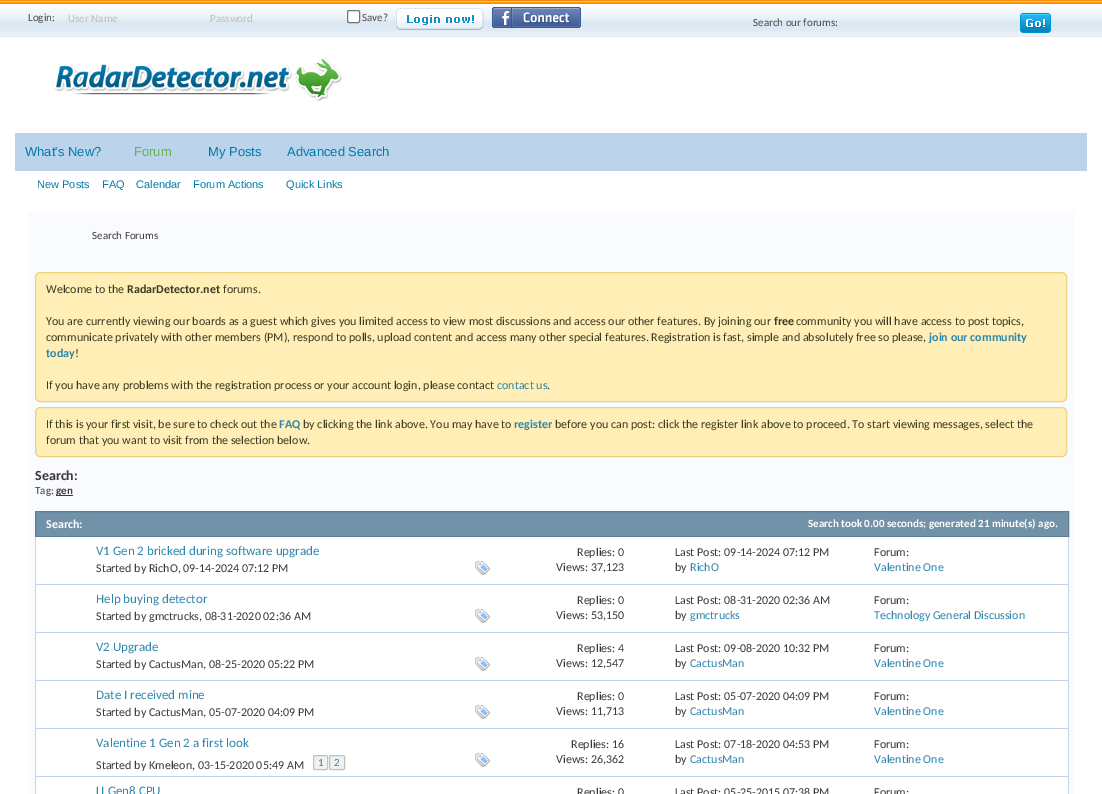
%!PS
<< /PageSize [1102 794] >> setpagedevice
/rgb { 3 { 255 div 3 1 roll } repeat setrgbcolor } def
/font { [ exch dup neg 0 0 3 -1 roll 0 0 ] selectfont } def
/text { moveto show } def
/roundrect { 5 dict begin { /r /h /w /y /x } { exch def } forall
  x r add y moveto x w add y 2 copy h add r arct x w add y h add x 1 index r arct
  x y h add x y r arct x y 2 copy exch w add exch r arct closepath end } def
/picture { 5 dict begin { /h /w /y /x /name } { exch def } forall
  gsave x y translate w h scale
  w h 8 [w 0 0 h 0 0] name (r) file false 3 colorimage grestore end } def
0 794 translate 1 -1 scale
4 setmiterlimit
255 255 255 rgb
0 0 1102 794 rectfill
(img_01.rgb) 0 0 1102 37 picture
347.5 10.5 12 12 1.5 roundrect gsave fill grestore
118 118 118 rgb
stroke
(img_02.rgb) 396 8 88 22 picture
(img_03.rgb) 492 7 89 21 picture
(img_04.rgb) 1020 13 31 20 picture
(img_05.rgb) 54 57 288 45 picture
187 212 236 rgb
15 133 1072 38 rectfill
249 251 254 rgb
28 212 1046 582 rectfill
255 239 182 rgb
35.5 272.5 1031 129 4.5 roundrect gsave fill grestore
235 210 123 rgb
stroke
255 239 182 rgb
35.5 407.5 1031 49 4.5 roundrect gsave fill grestore
235 210 123 rgb
stroke
58 58 58 rgb
56 495 17 1 rectfill
113 146 168 rgb
35.5 511.5 moveto 1033 0 rlineto 0 25 rlineto -1033 0 rlineto closepath gsave fill grestore
90 127 151 rgb
stroke
255 255 255 rgb
36 537 1032 47 rectfill
197 213 231 rgb
1068 537 1 257 rectfill
35 584 1034 1 rectfill
35 537 1 48 rectfill
(img_06.rgb) 475 561 15 14 picture
255 255 255 rgb
36 585 1032 47 rectfill
197 213 231 rgb
35 632 1034 1 rectfill
35 585 1 48 rectfill
(img_06.rgb) 475 609 15 14 picture
255 255 255 rgb
36 633 1032 47 rectfill
197 213 231 rgb
35 680 1034 1 rectfill
35 633 1 48 rectfill
(img_06.rgb) 475 657 15 14 picture
255 255 255 rgb
36 681 1032 47 rectfill
197 213 231 rgb
35 728 1034 1 rectfill
35 681 1 48 rectfill
(img_06.rgb) 475 705 15 14 picture
255 255 255 rgb
36 729 1032 47 rectfill
197 213 231 rgb
35 776 1034 1 rectfill
35 729 1 65 rectfill
241 241 241 rgb
313.5 755.5 14 14 1.5 roundrect gsave fill grestore
193 193 193 rgb
stroke
241 241 241 rgb
329.5 755.5 15 14 1.5 roundrect gsave fill grestore
193 193 193 rgb
stroke
(img_06.rgb) 475 753 15 14 picture
255 255 255 rgb
36 777 1032 17 rectfill
/Carlito-Regular 11 font
73 73 73 rgb
(Login:) 28 21 text
189 189 189 rgb
(User Name) 68 22 text
(Password) 210 22 text
73 73 73 rgb
(Save?) 362 21 text
(Search our forums:) 753 26 text
/LiberationSans-Regular 13 font
1 123 170 rgb
(What's New?) 25 156 text
96 183 78 rgb
(Forum) 134 156 text
1 123 170 rgb
(My Posts) 208 156 text
(Advanced Search) 287 156 text
/LiberationSans-Regular 11 font
(New Posts) 37 188 text
(FAQ) 102 188 text
(Calendar) 136 188 text
(Forum Actions) 193 188 text
(Quick Links) 286 188 text
/Carlito-Regular 11 font
58 58 58 rgb
(Search Forums) 92 239 text
/Carlito-Regular 12 font
60 58 34 rgb
(Welcome to the) 46 293 text
/Carlito-Bold 12 font
(RadarDetector.net) 127 293 text
/Carlito-Regular 12 font
(forums.) 223 293 text
(You are currently viewing our boards as a guest which gives you limited access to view most discussions and access our other features. By joining our) 46 325 text
/Carlito-Bold 12 font
(free) 774 325 text
/Carlito-Regular 12 font
(community you will have access to post topics,) 796 325 text
(communicate privately with other members \(PM\), respond to polls, upload content and access many other special features. Registration is fast, simple and absolutely free so please,) 46 341 text
/Carlito-Bold 12 font
46 134 173 rgb
(join our community) 929 341 text
(today) 46 357 text
/Carlito-Regular 12 font
60 58 34 rgb
(!) 75 357 text
(If you have any problems with the registration process or your account login, please contact) 46 389 text
46 134 173 rgb
(contact us) 497 389 text
60 58 34 rgb
(.) 547 389 text
(If this is your first visit, be sure to check out the) 46 428 text
/Carlito-Bold 12 font
46 134 173 rgb
(FAQ) 279 428 text
/Carlito-Regular 12 font
60 58 34 rgb
(by clicking the link above. You may have to) 303 428 text
/Carlito-Bold 12 font
46 134 173 rgb
(register) 514 428 text
/Carlito-Regular 12 font
60 58 34 rgb
(before you can post: click the register link above to proceed. To start viewing messages, select the) 555 428 text
(forum that you want to visit from the selection below.) 46 444 text
/Carlito-Bold 14 font
58 58 58 rgb
(Search:) 35 480 text
/Carlito-Regular 11 font
(Tag:) 35 494 text
/Carlito-Bold 11 font
(gen) 56 494 text
/Carlito-Bold 12 font
255 255 255 rgb
(Search:) 46 528 text
/Carlito-Bold 11 font
(Search took 0.00 seconds; generated 21 minute\(s\) ago.) 808 527 text
/Carlito-Regular 13 font
46 134 173 rgb
(V1 Gen 2 bricked during software upgrade) 96 555 text
/Carlito-Regular 12 font
58 58 58 rgb
(Started by RichO, 09-14-2024 07:12 PM) 96 572 text
(Replies: 0) 577 556 text
(Views: 37,123) 556 571 text
(Last Post: 09-14-2024) 675 556 text
(07:12 PM) 783 556 text
(by) 675 571 text
46 134 173 rgb
(RichO) 690 571 text
58 58 58 rgb
(Forum:) 874 556 text
46 134 173 rgb
(Valentine One) 874 571 text
/Carlito-Regular 13 font
(Help buying detector) 96 603 text
/Carlito-Regular 12 font
58 58 58 rgb
(Started by gmctrucks, 08-31-2020 02:36 AM) 96 620 text
(Replies: 0) 577 604 text
(Views: 53,150) 556 619 text
(Last Post: 08-31-2020) 675 604 text
(02:36 AM) 783 604 text
(by) 675 619 text
46 134 173 rgb
(gmctrucks) 690 619 text
58 58 58 rgb
(Forum:) 874 604 text
46 134 173 rgb
(Technology General Discussion) 874 619 text
/Carlito-Regular 13 font
(V2 Upgrade) 96 651 text
/Carlito-Regular 12 font
58 58 58 rgb
(Started by CactusMan, 08-25-2020 05:22 PM) 96 668 text
(Replies: 4) 577 652 text
(Views: 12,547) 556 667 text
(Last Post: 09-08-2020) 675 652 text
(10:32 PM) 783 652 text
(by) 675 667 text
46 134 173 rgb
(CactusMan) 690 667 text
58 58 58 rgb
(Forum:) 874 652 text
46 134 173 rgb
(Valentine One) 874 667 text
/Carlito-Regular 13 font
(Date I received mine) 96 699 text
/Carlito-Regular 12 font
58 58 58 rgb
(Started by CactusMan, 05-07-2020 04:09 PM) 96 716 text
(Replies: 0) 577 700 text
(Views: 11,713) 556 715 text
(Last Post: 05-07-2020) 675 700 text
(04:09 PM) 783 700 text
(by) 675 715 text
46 134 173 rgb
(CactusMan) 690 715 text
58 58 58 rgb
(Forum:) 874 700 text
46 134 173 rgb
(Valentine One) 874 715 text
/Carlito-Regular 13 font
(Valentine 1 Gen 2 a first look) 96 747 text
/Carlito-Regular 12 font
58 58 58 rgb
(Started by Kmeleon, 03-15-2020 05:49 AM) 96 769 text
/Carlito-Regular 11 font
46 134 173 rgb
(1) 318 766 text
(2) 334 766 text
/Carlito-Regular 12 font
58 58 58 rgb
(Replies: 16) 571 748 text
(Views: 26,362) 556 763 text
(Last Post: 07-18-2020) 675 748 text
(04:53 PM) 783 748 text
(by) 675 763 text
46 134 173 rgb
(CactusMan) 690 763 text
58 58 58 rgb
(Forum:) 874 748 text
46 134 173 rgb
(Valentine One) 874 763 text
/Carlito-Regular 13 font
(LI Gen8 CPU) 96 795 text
/Carlito-Regular 12 font
58 58 58 rgb
(Replies: 0) 577 796 text
(Last Post: 05-25-2015) 675 796 text
(07:38 PM) 783 796 text
(Forum:) 874 796 text
showpage
